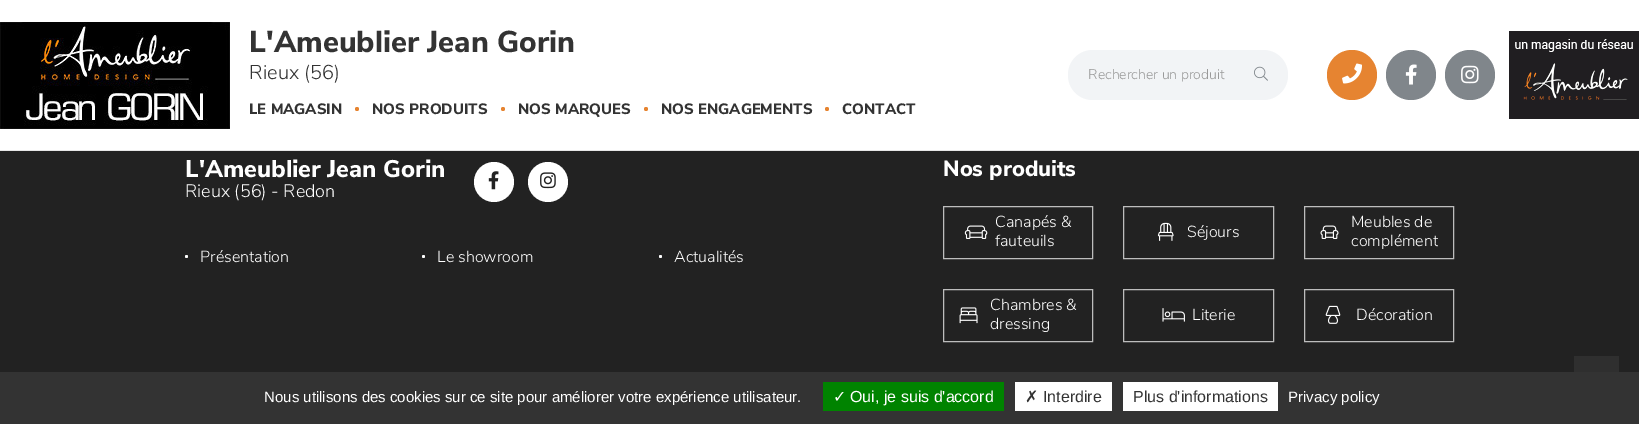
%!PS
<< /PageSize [1639 424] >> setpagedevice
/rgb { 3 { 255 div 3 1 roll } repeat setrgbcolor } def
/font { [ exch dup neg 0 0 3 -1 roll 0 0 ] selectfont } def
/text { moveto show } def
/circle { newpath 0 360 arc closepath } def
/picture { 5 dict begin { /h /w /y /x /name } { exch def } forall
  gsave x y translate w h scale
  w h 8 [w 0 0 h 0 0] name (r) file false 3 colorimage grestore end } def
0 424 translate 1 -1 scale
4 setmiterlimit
34 34 34 rgb
0 0 1639 424 rectfill
255 255 255 rgb
0 0 1639 150 rectfill
230 230 230 rgb
0 150 1639 1 rectfill
(img_01.rgb) 0 22 230 107 picture
230 132 49 rgb
357 109 2 circle fill
503 109 2 circle fill
646 109 2 circle fill
827 109 2 circle fill
242 244 246 rgb
1093 50 moveto 152 0 rlineto 0 50 rlineto -152 0 rlineto -14 0 -25 -11 -25 -25 rcurveto 0 -14 11 -25 25 -25 rcurveto closepath fill
1244 50 moveto 19 0 rlineto 14 0 25 11 25 25 rcurveto 0 14 -11 25 -25 25 rcurveto -19 0 rlineto closepath fill
(img_02.rgb) 1254 66 14 15 picture
230 132 49 rgb
1352 75 25 circle fill
(img_03.rgb) 1342 63 20 21 picture
128 134 139 rgb
1411 75 25 circle fill
(img_04.rgb) 1405 64 12 21 picture
1470 75 25 circle fill
(img_05.rgb) 1461 65 18 19 picture
(img_06.rgb) 1509 31 130 88 picture
255 255 255 rgb
494 182 20 circle fill
(img_07.rgb) 488 171 11 19 picture
548 182 20 circle fill
(img_08.rgb) 540 172 16 17 picture
186.5 256.5 1.5 circle fill
423.5 256.5 1.5 circle fill
660.5 256.5 1.5 circle fill
189 189 189 rgb
943.5 206.5 149 52 rectstroke
(img_09.rgb) 964 225 24 14 picture
1123.5 206.5 150 52 rectstroke
(img_10.rgb) 1157 222 17 19 picture
1304.5 206.5 149 52 rectstroke
(img_11.rgb) 1320 225 19 14 picture
943.5 289.5 149 52 rectstroke
(img_12.rgb) 959 307 19 17 picture
1123.5 289.5 150 52 rectstroke
(img_13.rgb) 1162 308 23 14 picture
1304.5 289.5 149 52 rectstroke
(img_14.rgb) 1325 305 16 19 picture
47 47 47 rgb
1574 356 45 16 rectfill
51 51 51 rgb
0 372 1639 52 rectfill
0 131 0 rgb
823 382 181 29 rectfill
255 255 255 rgb
1015 382 97 29 rectfill
1123 382 155 29 rectfill
/NunitoSans-ExtraBold 30 font
51 51 51 rgb
(L'Ameublier Jean Gorin) 249 52 text
/NunitoSans-Light 20 font
(Rieux \(56\)) 249 79 text
/NunitoSans-ExtraBold 15 font
(LE MAGASIN) 249 114 text
(NOS PRODUITS) 372 114 text
(NOS MARQUES) 518 114 text
(NOS ENGAGEMENTS) 661 114 text
(CONTACT) 842 114 text
/NunitoSans-Light 14 font
153 153 153 rgb
(Rechercher un produit) 1088 79 text
/NunitoSans-ExtraBold 24 font
255 255 255 rgb
(L'Ameublier Jean Gorin) 185 177 text
/NunitoSans-Light 18 font
(Rieux \(56\) - Redon) 185 197 text
/NunitoSans-Light 16 font
(Présentation) 200 262 text
(Le showroom) 437 262 text
(Actualités) 674 262 text
/NunitoSans-ExtraBold 22 font
(Nos produits) 943 176 text
/NunitoSans-Light 16 font
(Canapés &) 995 227 text
(fauteuils) 995 246 text
(Séjours) 1187 237 text
(Meubles de) 1351 227 text
(complément) 1351 246 text
(Chambres &) 990 310 text
(dressing) 990 329 text
(Literie) 1192 320 text
(Décoration) 1356 320 text
/LiberationSans-Regular 15 font
(Nous utilisons des cookies sur ce site pour améliorer votre expérience utilisateur.) 264 402 text
/DejaVuSans-Regular 16 font
(✓) 833 402 text
/LiberationSans-Regular 16 font
(Oui, je suis d'accord) 850 402 text
/DejaVuSans-Regular 16 font
51 51 51 rgb
(✗) 1025 402 text
/LiberationSans-Regular 16 font
(Interdire) 1043 402 text
(Plus d'informations) 1133 402 text
/LiberationSans-Regular 15 font
255 255 255 rgb
(Privacy policy) 1288 402 text
showpage
